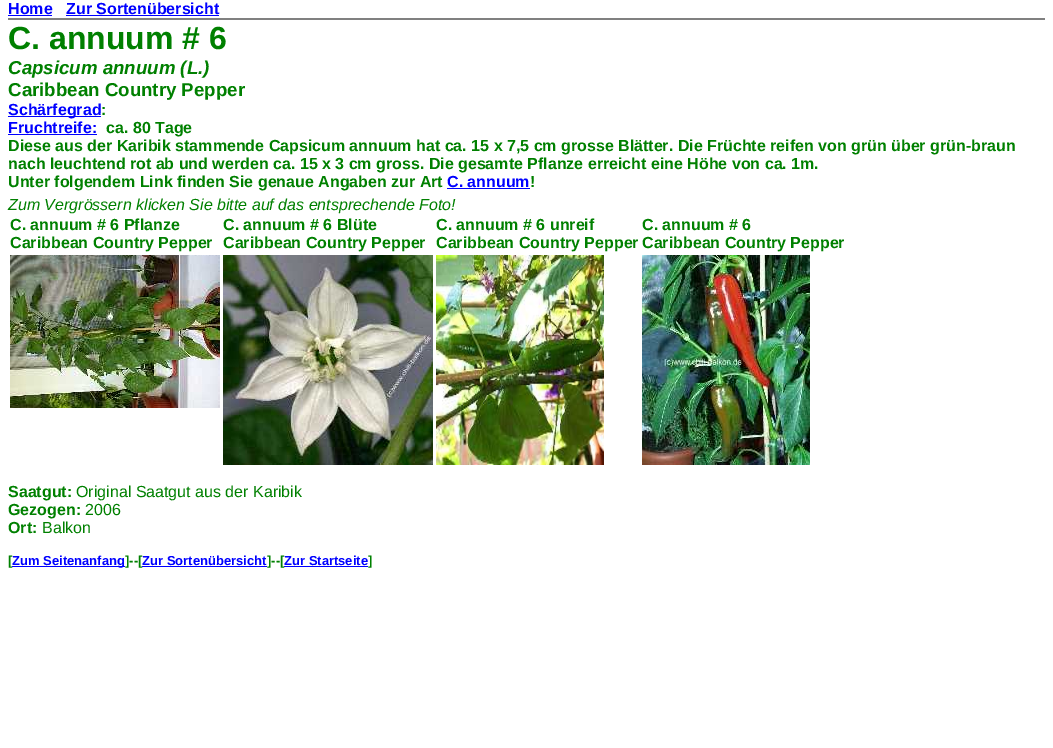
%!PS
<< /PageSize [1053 748] >> setpagedevice
/rgb { 3 { 255 div 3 1 roll } repeat setrgbcolor } def
/font { [ exch dup neg 0 0 3 -1 roll 0 0 ] selectfont } def
/text { moveto show } def
/picture { 5 dict begin { /h /w /y /x /name } { exch def } forall
  gsave x y translate w h scale
  w h 8 [w 0 0 h 0 0] name (r) file false 3 colorimage grestore end } def
0 748 translate 1 -1 scale
4 setmiterlimit
255 255 255 rgb
0 0 1053 748 rectfill
0 0 255 rgb
8 15 44 1 rectfill
66 15 153 1 rectfill
128 128 128 rgb
8 18 1037 2 rectfill
0 0 255 rgb
8 116 93 1 rectfill
8 134 89 1 rectfill
447 188 83 1 rectfill
(img_01.rgb) 10 255 210 153 picture
(img_02.rgb) 223 255 210 210 picture
(img_03.rgb) 436 255 168 210 picture
(img_04.rgb) 642 255 168 210 picture
284 566 84 1 rectfill
/LiberationSans-Bold 16 font
(Home) 8 14 text
(Zur Sortenübersicht) 66 14 text
/LiberationSans-Bold 32 font
0 128 0 rgb
(C. annuum # 6) 8 49 text
/LiberationSans-BoldItalic 18.7 font
(Capsicum annuum \(L.\)) 8 74 text
/LiberationSans-Bold 18.7 font
(Caribbean Country Pepper) 8 96 text
/LiberationSans-Bold 16 font
0 0 255 rgb
(Schärfegrad) 8 115 text
0 128 0 rgb
(:) 101 115 text
0 0 255 rgb
(Fruchtreife:) 8 133 text
0 128 0 rgb
(ca. 80 Tage) 106 133 text
(Diese aus der Karibik stammende Capsicum annuum hat ca. 15 x 7,5 cm grosse Blätter. Die Früchte reifen von grün über grün-braun) 8 151 text
(nach leuchtend rot ab und werden ca. 15 x 3 cm gross. Die gesamte Pflanze erreicht eine Höhe von ca. 1m.) 8 169 text
(Unter folgendem Link finden Sie genaue Angaben zur Art) 8 187 text
0 0 255 rgb
(C. annuum) 447 187 text
0 128 0 rgb
(!) 530 187 text
/LiberationSans-Italic 16 font
(Zum Vergrössern klicken Sie bitte auf das entsprechende Foto!) 8 210 text
/LiberationSans-Bold 16 font
(C. annuum # 6 Pflanze) 10 230 text
(Caribbean Country Pepper) 10 248 text
(C. annuum # 6 Blüte) 223 230 text
(Caribbean Country Pepper) 223 248 text
(C. annuum # 6 unreif) 436 230 text
(Caribbean Country Pepper) 436 248 text
(C. annuum # 6) 642 230 text
(Caribbean Country Pepper) 642 248 text
(Saatgut:) 8 497 text
/LiberationSans-Regular 16 font
(Original Saatgut aus der Karibik) 76 497 text
/LiberationSans-Bold 16 font
(Gezogen:) 8 515 text
/LiberationSans-Regular 16 font
(2006) 85 515 text
/LiberationSans-Bold 16 font
(Ort:) 8 533 text
/LiberationSans-Regular 16 font
(Balkon) 42 533 text
/LiberationSans-Bold 13 font
([) 8 565 text
0 0 255 rgb
12 566 113 1 rectfill
(Zum Seitenanfang) 12 565 text
0 128 0 rgb
(]--[) 125 565 text
0 0 255 rgb
142 566 125 1 rectfill
(Zur Sortenübersicht) 142 565 text
0 128 0 rgb
(]--[) 267 565 text
0 0 255 rgb
(Zur Startseite) 284 565 text
0 128 0 rgb
(]) 368 565 text
showpage
